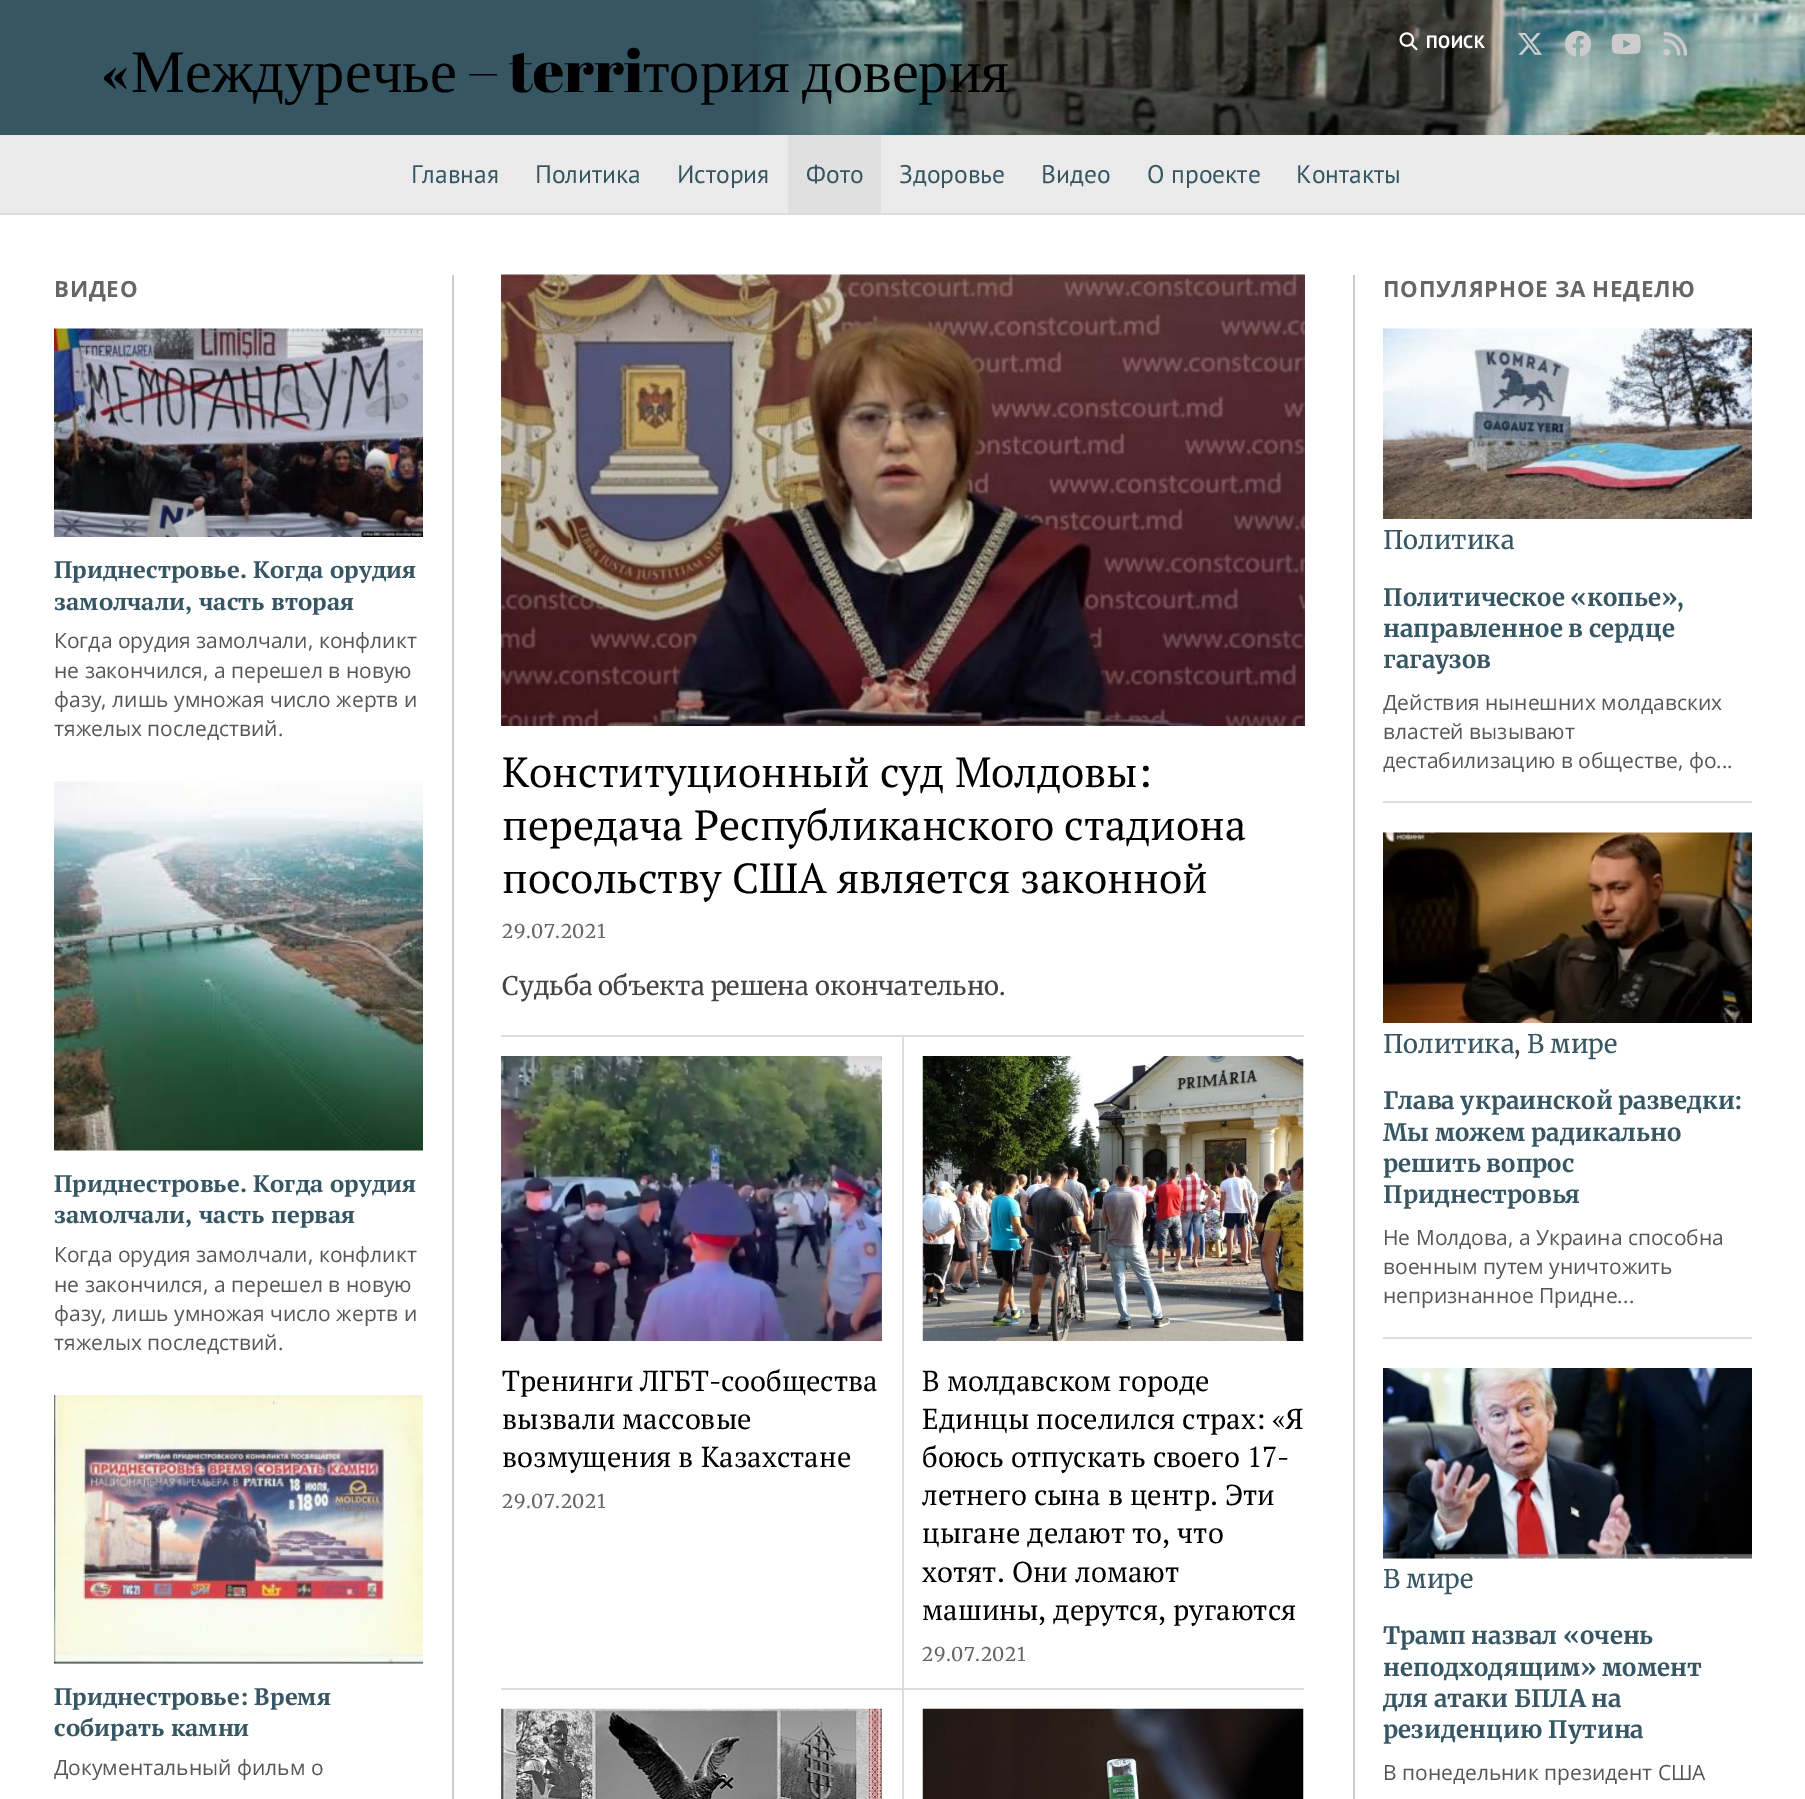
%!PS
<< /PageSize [1805 1799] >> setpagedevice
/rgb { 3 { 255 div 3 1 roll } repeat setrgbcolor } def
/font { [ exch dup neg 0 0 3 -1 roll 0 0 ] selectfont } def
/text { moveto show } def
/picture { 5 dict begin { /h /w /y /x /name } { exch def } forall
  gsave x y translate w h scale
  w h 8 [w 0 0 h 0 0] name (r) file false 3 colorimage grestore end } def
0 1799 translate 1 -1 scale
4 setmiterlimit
255 255 255 rgb
0 0 1805 1799 rectfill
53 86 98 rgb
0 0 931 135 rectfill
(img_01.rgb) 758 0 1047 135 picture
(img_02.rgb) 1399 32 19 19 picture
(img_03.rgb) 1518 32 24 23 picture
(img_04.rgb) 1565 30 26 27 picture
(img_05.rgb) 1611 33 30 21 picture
(img_06.rgb) 1663 32 25 24 picture
220 220 220 rgb
0 213 1805 2 rectfill
234 234 234 rgb
0 135 1805 78 rectfill
224 224 224 rgb
788 135 93 78 rectfill
204 204 204 rgb
452 275 2 1524 rectfill
1353 275 2 1524 rectfill
(img_07.rgb) 54 328 369 209 picture
(img_08.rgb) 54 781 369 370 picture
(img_09.rgb) 54 1395 369 269 picture
(img_10.rgb) 501 274 804 452 picture
220 220 220 rgb
501 1035 803 2 rectfill
(img_11.rgb) 501 1056 381 285 picture
902 1035 2 653 rectfill
(img_12.rgb) 922 1056 382 285 picture
501 1688 402 2 rectfill
902 1688 2 111 rectfill
(img_13.rgb) 501 1708 381 91 picture
902 1688 402 2 rectfill
(img_14.rgb) 922 1708 382 91 picture
221 221 221 rgb
1383 801 369 2 rectfill
(img_15.rgb) 1383 328 369 191 picture
1383 1337 369 2 rectfill
(img_16.rgb) 1383 832 369 191 picture
240 240 240 rgb
1383 1558 369 1 rectfill
(img_17.rgb) 1383 1368 369 191 picture
/PTSans-Bold 18 font
255 255 255 rgb
1426 48 moveto 0.5 0 (ПОИСК) ashow
/AbrilFatface-Regular 60.5 font
0 0 0 rgb
(«) 101 92 text
/LiberationSerif-Regular 60.5 font
(Междуречье) 131 92 text
/AbrilFatface-Regular 60.5 font
(– terri) 468 92 text
/LiberationSerif-Regular 60.5 font
(тория) 643 92 text
(доверия) 802 92 text
/PTSans-Regular 25.5 font
53 86 98 rgb
(Главная) 411 183 text
(Политика) 535 183 text
(История) 677 183 text
(Фото) 806 183 text
(Здоровье) 899 183 text
(Видео) 1041 183 text
(О проекте) 1147 183 text
(Контакты) 1296 183 text
/OpenSans-Bold 22.25 font
102 102 102 rgb
54 297 moveto 0.7 0 (ВИДЕО) ashow
/PTSerif-Bold 24 font
53 86 98 rgb
(Приднестровье. Когда орудия) 54 578 text
(замолчали, часть вторая) 54 610 text
/OpenSans-Regular 21 font
86 86 86 rgb
(Когда орудия замолчали, конфликт) 54 648 text
(не закончился, а перешел в новую) 54 678 text
(фазу, лишь умножая число жертв и) 54 707 text
(тяжелых последствий.) 54 736 text
/PTSerif-Bold 24 font
53 86 98 rgb
(Приднестровье. Когда орудия) 54 1192 text
(замолчали, часть первая) 54 1223 text
/OpenSans-Regular 21 font
86 86 86 rgb
(Когда орудия замолчали, конфликт) 54 1262 text
(не закончился, а перешел в новую) 54 1292 text
(фазу, лишь умножая число жертв и) 54 1321 text
(тяжелых последствий.) 54 1350 text
/PTSerif-Bold 24 font
53 86 98 rgb
(Приднестровье: Время) 54 1705 text
(собирать камни) 54 1736 text
/OpenSans-Regular 21 font
86 86 86 rgb
(Документальный фильм о) 54 1775 text
/PTSerif-Regular 42 font
0 0 0 rgb
(Конституционный суд Молдовы:) 502 787 text
(передача Республиканского стадиона) 502 840 text
(посольству США является законной) 502 893 text
/Merriweather-Regular 19 font
102 102 102 rgb
502 938 moveto 0.5 0 (29.07.2021) ashow
/Merriweather-Regular 25.5 font
68 68 68 rgb
(Судьба объекта решена окончательно.) 502 995 text
/PTSerif-Regular 28.75 font
0 0 0 rgb
(Тренинги ЛГБТ-сообщества) 502 1391 text
(вызвали массовые) 502 1429 text
(возмущения в Казахстане) 502 1467 text
/Merriweather-Regular 19 font
102 102 102 rgb
502 1508 moveto 0.5 0 (29.07.2021) ashow
/PTSerif-Regular 28.75 font
0 0 0 rgb
(В молдавском городе) 922 1391 text
(Единцы поселился страх: «Я) 922 1429 text
(боюсь отпускать своего 17-) 922 1467 text
(летнего сына в центр. Эти) 922 1505 text
(цыгане делают то, что) 922 1543 text
(хотят. Они ломают) 922 1582 text
(машины, дерутся, ругаются) 922 1620 text
/Merriweather-Regular 19 font
102 102 102 rgb
922 1661 moveto 0.5 0 (29.07.2021) ashow
/OpenSans-Bold 22.25 font
1383 297 moveto 0.7 0 (ПОПУЛЯРНОЕ ЗА НЕДЕЛЮ) ashow
/Merriweather-Regular 25.5 font
53 86 98 rgb
(Политика) 1383 549 text
/Merriweather-Bold 24 font
(Политическое «копье»,) 1383 606 text
(направленное в сердце) 1383 637 text
(гагаузов) 1383 668 text
/OpenSans-Regular 21 font
86 86 86 rgb
(Действия нынешних молдавских) 1383 710 text
(властей вызывают) 1383 739 text
(дестабилизацию в обществе, фо...) 1383 768 text
/Merriweather-Regular 25.5 font
53 86 98 rgb
(Политика) 1383 1053 text
68 68 68 rgb
(,) 1514 1053 text
53 86 98 rgb
(В мире) 1527 1053 text
/Merriweather-Bold 24 font
(Глава украинской разведки:) 1383 1109 text
(Мы можем радикально) 1383 1141 text
(решить вопрос) 1383 1172 text
(Приднестровья) 1383 1203 text
/OpenSans-Regular 21 font
86 86 86 rgb
(Не Молдова, а Украина способна) 1383 1245 text
(военным путем уничтожить) 1383 1274 text
(непризнанное Придне...) 1383 1303 text
/Merriweather-Regular 25.5 font
53 86 98 rgb
(В мире) 1383 1588 text
/Merriweather-Bold 24 font
(Трамп назвал «очень) 1383 1644 text
(неподходящим» момент) 1383 1676 text
(для атаки БПЛА на) 1383 1707 text
(резиденцию Путина) 1383 1738 text
/OpenSans-Regular 21 font
86 86 86 rgb
(В понедельник президент США) 1383 1780 text
showpage
